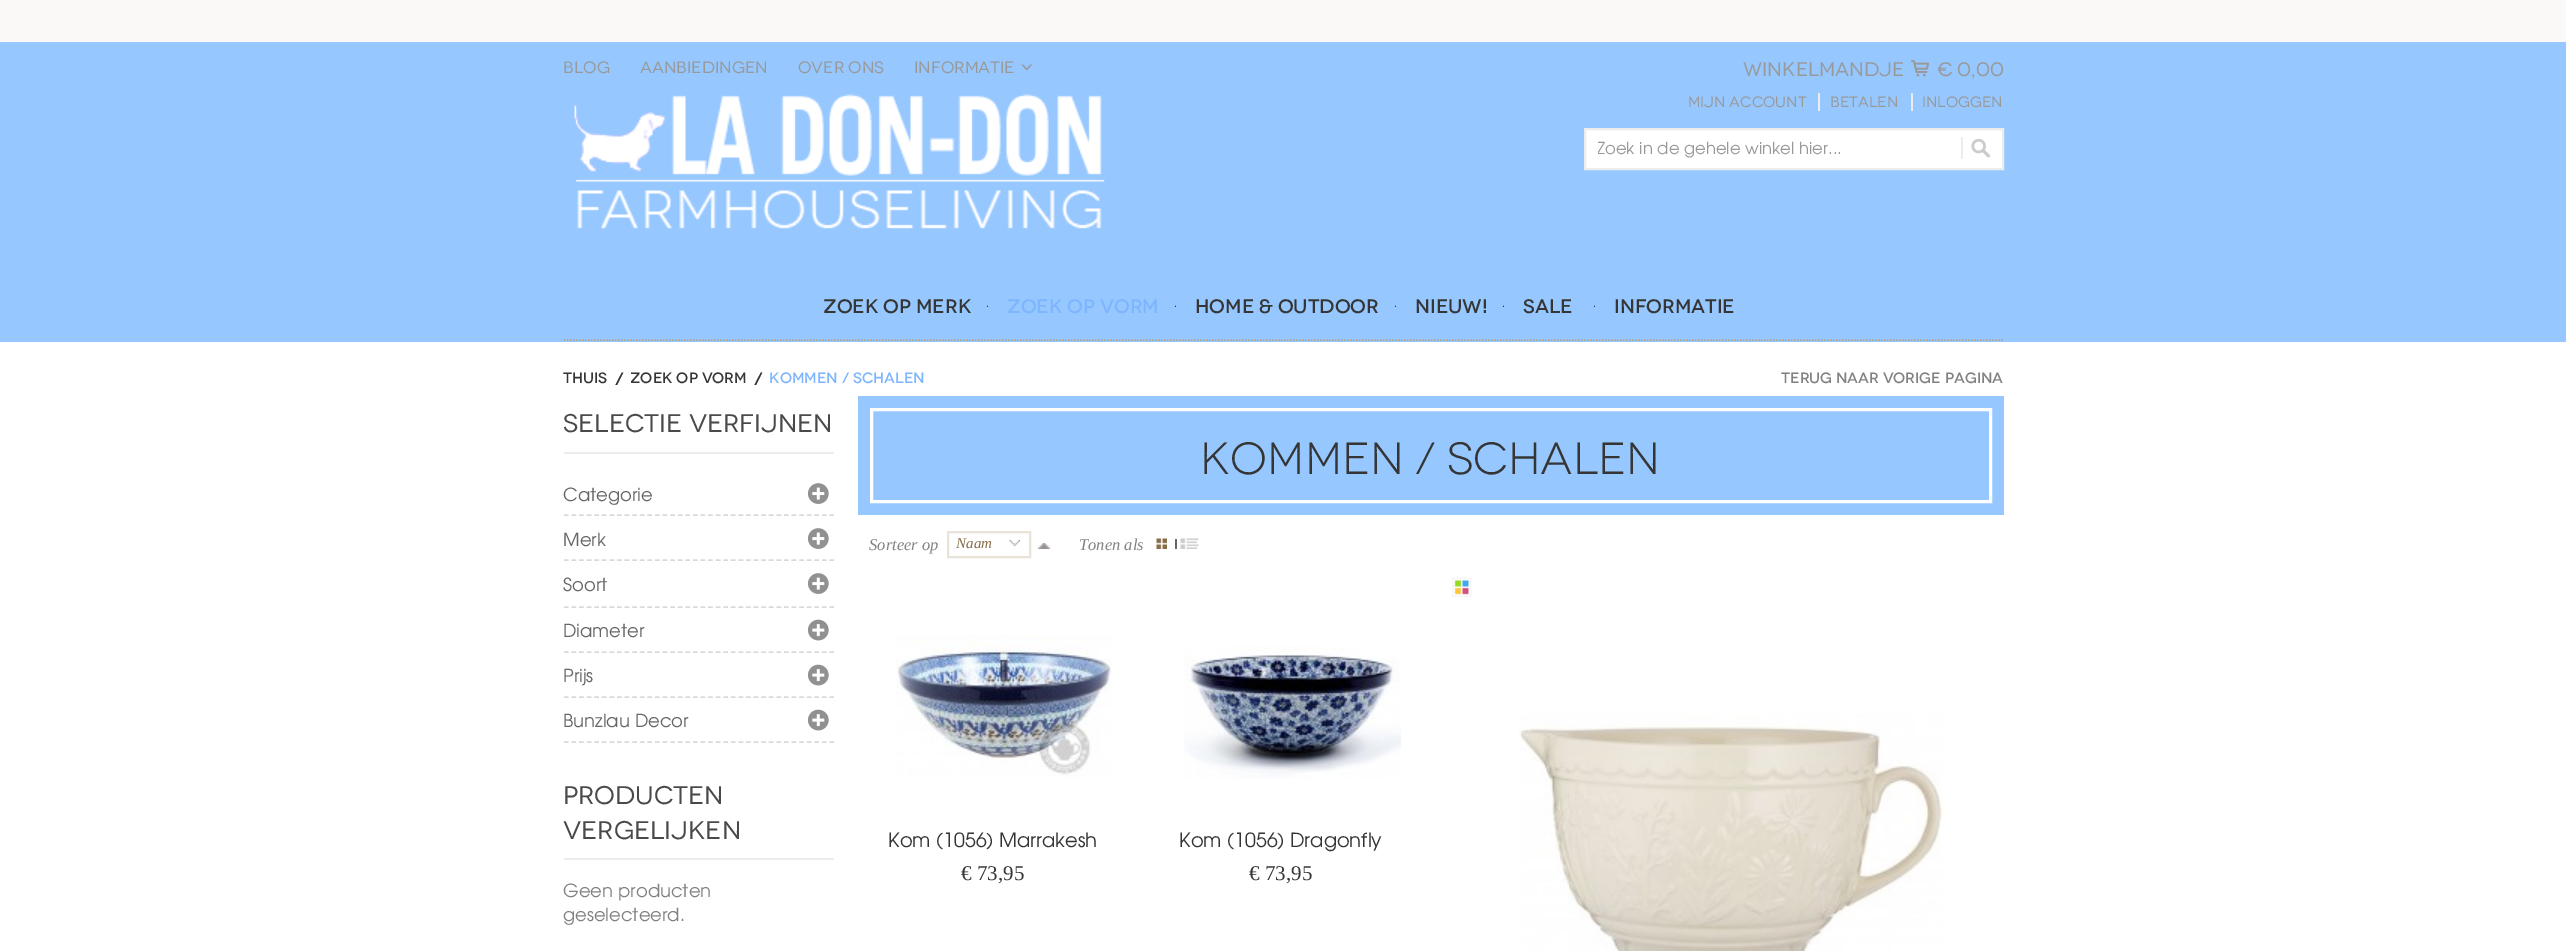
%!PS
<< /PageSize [2566 951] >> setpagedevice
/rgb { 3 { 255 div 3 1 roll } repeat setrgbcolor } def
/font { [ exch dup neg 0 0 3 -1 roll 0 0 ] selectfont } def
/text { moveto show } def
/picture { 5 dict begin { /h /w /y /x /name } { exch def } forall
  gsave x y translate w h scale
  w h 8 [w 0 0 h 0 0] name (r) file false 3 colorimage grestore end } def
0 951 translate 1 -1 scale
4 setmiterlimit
255 255 255 rgb
0 0 2566 951 rectfill
150 200 255 rgb
0 42 2566 300 rectfill
250 249 247 rgb
0 0 2566 42 rectfill
(img_01.rgb) 1021 64 12 7 picture
(img_02.rgb) 1911 60 19 17 picture
236 236 236 rgb
1818 93 2 18 rectfill
1911 93 2 18 rectfill
255 255 255 rgb
1585 129 moveto 418 0 rlineto 0 40 rlineto -418 0 rlineto closepath gsave fill grestore
236 236 236 rgb
2 setlinewidth
stroke
1961 137 2 22 rectfill
(img_03.rgb) 1971 138 19 20 picture
(img_04.rgb) 574 94 531 135 picture
179 164 135 rgb
1.5 setlinewidth
[1.5 1.5] 0 setdash
564 340 moveto 1440 0 rlineto stroke
236 236 236 rgb
564 452 270 2 rectfill
218 217 215 rgb
[4.5 3.09] 0 setdash
564 742 moveto 270 0 rlineto stroke
(img_05.rgb) 807 483 22 21 picture
564 515 moveto 270 0 rlineto stroke
(img_05.rgb) 807 528 22 21 picture
564 560 moveto 270 0 rlineto stroke
(img_05.rgb) 807 573 22 21 picture
564 607 moveto 270 0 rlineto stroke
(img_06.rgb) 807 619 22 22 picture
564 652 moveto 270 0 rlineto stroke
(img_06.rgb) 807 664 22 22 picture
564 697 moveto 270 0 rlineto stroke
(img_06.rgb) 807 709 22 22 picture
236 236 236 rgb
564 858 270 2 rectfill
150 200 255 rgb
858 396 1146 119 rectfill
255 255 255 rgb
3 setlinewidth
[] 0 setdash
871.5 409.5 1119 92 rectstroke
233 227 217 rgb
2 setlinewidth
948 532 82 25 rectstroke
(img_07.rgb) 1009 540 11 6 picture
(img_08.rgb) 1038 543 12 6 picture
(img_09.rgb) 1156 538 11 11 picture
102 102 102 rgb
1175 539 2 10 rectfill
(img_10.rgb) 1180 538 19 11 picture
(img_11.rgb) 895 635 217 142 picture
(img_12.rgb) 1184 646 217 133 picture
(img_13.rgb) 1452 577 20 20 picture
(img_14.rgb) 1519 714 426 237 picture
/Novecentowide-Regular 16.5 font
153 153 153 rgb
(Blog) 563 73 text
(Aanbiedingen) 640 73 text
(Over Ons) 798 73 text
(Informatie) 914 73 text
/Novecentowide-Regular 19.5 font
(Winkelmandje) 1743 76 text
(€ 0,00) 1937 76 text
/Novecentowide-Regular 15 font
(Mijn account) 1688 107 text
(Betalen) 1830 107 text
(Inloggen) 1922 107 text
gsave
1598 135 352 24 rectclip
/TeXGyreAdventor-Regular 16.5 font
(Zoek in de gehele winkel hier...) 1597 154 text
grestore
/Novecentowide-SemiBold 19.5 font
53 53 53 rgb
(Zoek op Merk) 823 313 text
/TeXGyreAdventor-Regular 10 font
0 0 0 rgb
(.) 986 307 text
/Novecentowide-SemiBold 19.5 font
125 182 255 rgb
(Zoek op Vorm) 1007 313 text
/TeXGyreAdventor-Regular 10 font
0 0 0 rgb
(.) 1174 307 text
/Novecentowide-SemiBold 19.5 font
53 53 53 rgb
(Home & Outdoor) 1195 313 text
/TeXGyreAdventor-Regular 10 font
0 0 0 rgb
(.) 1394 307 text
/Novecentowide-SemiBold 19.5 font
53 53 53 rgb
(Nieuw!) 1415 313 text
/TeXGyreAdventor-Regular 10 font
0 0 0 rgb
(.) 1502 307 text
/Novecentowide-SemiBold 19.5 font
53 53 53 rgb
(SALE) 1523 313 text
/TeXGyreAdventor-Regular 10 font
0 0 0 rgb
(.) 1593 307 text
/Novecentowide-SemiBold 19.5 font
53 53 53 rgb
(Informatie) 1614 313 text
/Novecentowide-SemiBold 15 font
(Thuis) 563 383 text
/Novecentowide-SemiBold 18 font
(/) 615 385 text
/Novecentowide-SemiBold 15 font
(Zoek op Vorm) 630 383 text
/Novecentowide-SemiBold 18 font
(/) 754 385 text
/Novecentowide-SemiBold 15 font
125 182 255 rgb
(Kommen / Schalen) 769 383 text
129 129 129 rgb
(Terug naar vorige pagina) 1781 383 text
/Novecentowide-Regular 25.5 font
73 73 73 rgb
(SELECTIE VERFIJNEN) 563 432 text
/TeXGyreAdventor-Regular 18 font
102 102 102 rgb
(Categorie) 563 501 text
(Merk) 563 546 text
(Soort) 563 591 text
(Diameter) 563 637 text
(Prijs) 563 682 text
(Bunzlau Decor) 563 727 text
/Novecentowide-Regular 25.5 font
73 73 73 rgb
(PRODUCTEN) 563 804 text
(VERGELIJKEN) 563 839 text
/TeXGyreAdventor-Regular 18 font
129 129 129 rgb
(Geen producten) 563 897 text
(geselecteerd.) 563 921 text
/Novecentowide-Light 45 font
53 53 53 rgb
(Kommen / Schalen) 1200 474 text
/LiberationSerif-Italic 16.5 font
129 129 129 rgb
(Sorteer op) 869 550 text
/LiberationSerif-Italic 15 font
135 110 72 rgb
(Naam) 956 548 text
/LiberationSerif-Italic 16.5 font
129 129 129 rgb
(Tonen als) 1079 550 text
/TeXGyreAdventor-Regular 19.5 font
53 53 53 rgb
(Kom \(1056\) Marrakesh) 888 847 text
/LiberationSerif-Regular 21 font
(€ 73,95) 961 880 text
/TeXGyreAdventor-Regular 19.5 font
(Kom \(1056\) Dragonfly) 1179 847 text
/LiberationSerif-Regular 21 font
(€ 73,95) 1249 880 text
showpage
